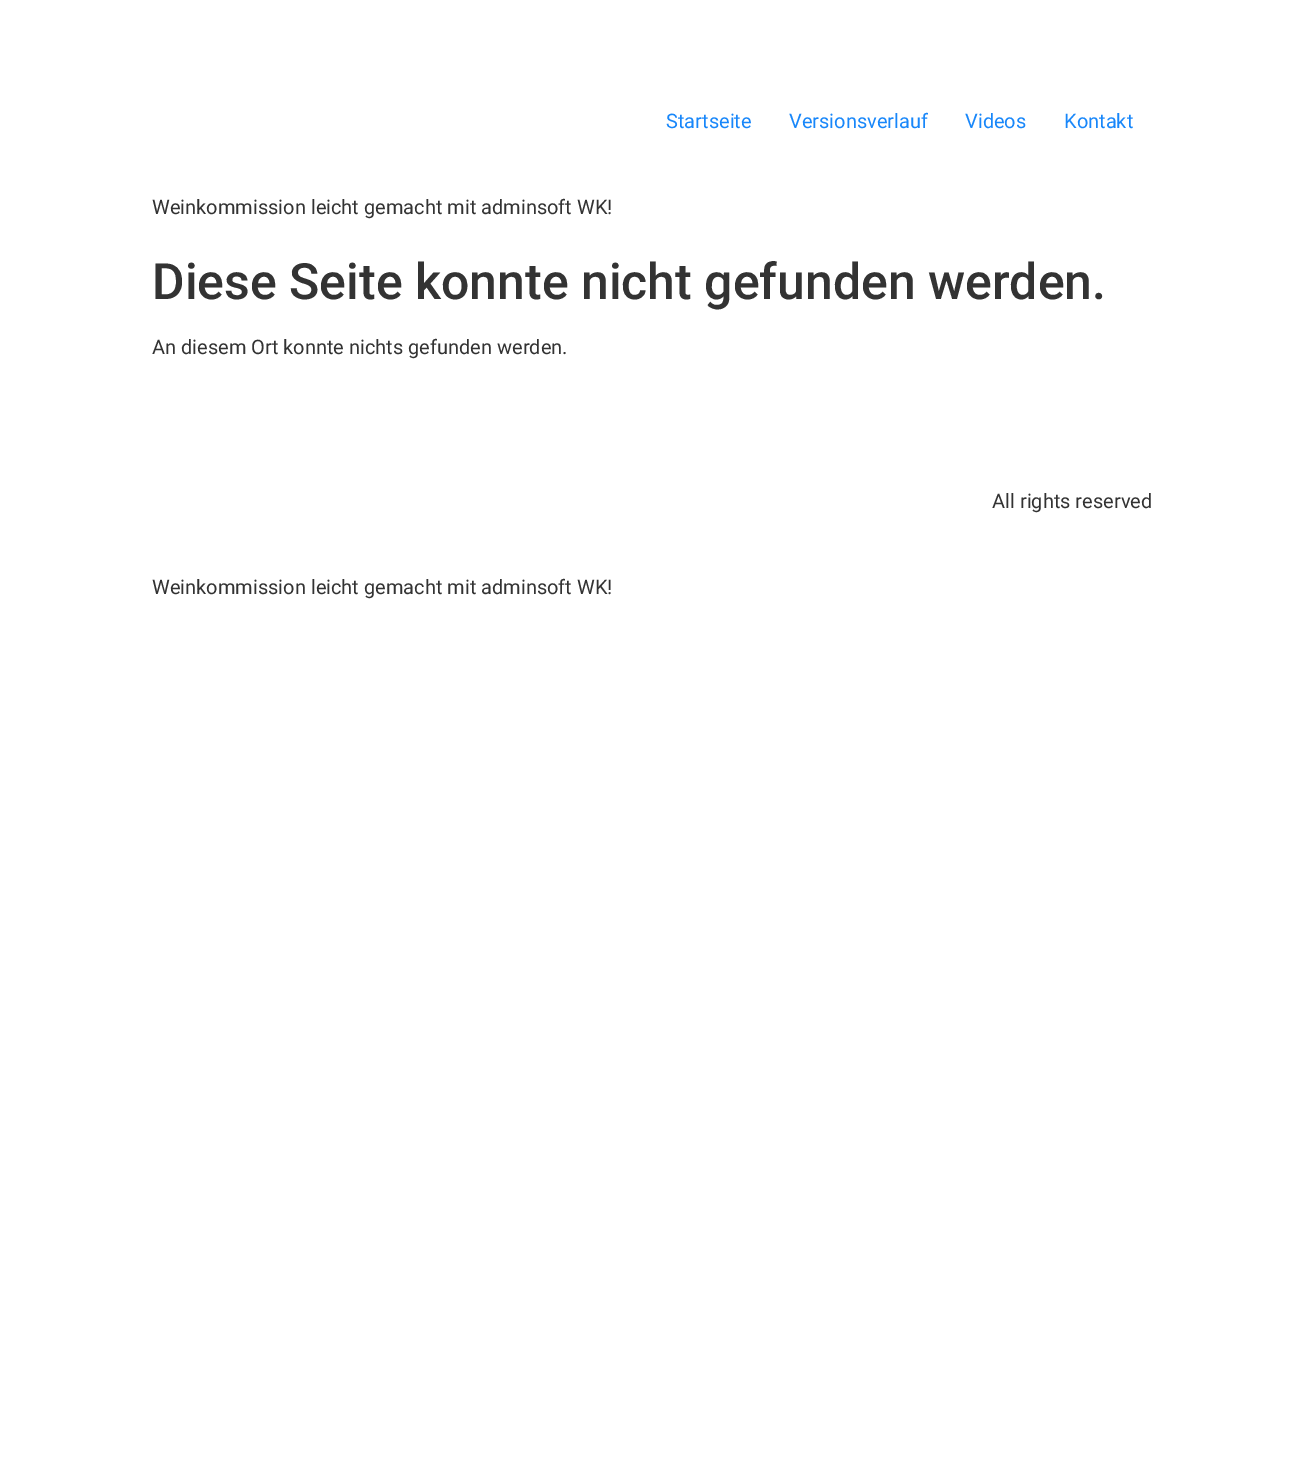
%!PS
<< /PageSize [1303 1468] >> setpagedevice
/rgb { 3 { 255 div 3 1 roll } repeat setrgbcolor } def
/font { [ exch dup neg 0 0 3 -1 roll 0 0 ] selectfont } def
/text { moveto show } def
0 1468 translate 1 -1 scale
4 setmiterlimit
255 255 255 rgb
0 0 1303 1468 rectfill
/Roboto-Regular 20 font
24 135 250 rgb
(Startseite) 666 128 text
(Versionsverlauf) 789 128 text
(Videos) 965 128 text
(Kontakt) 1064 128 text
51 51 51 rgb
(Weinkommission leicht gemacht mit adminsoft WK!) 152 214 text
/Roboto-Medium 50 font
(Diese Seite konnte nicht gefunden werden.) 152 299 text
/Roboto-Regular 20 font
(An diesem Ort konnte nichts gefunden werden.) 152 354 text
(All rights reserved) 992 508 text
(Weinkommission leicht gemacht mit adminsoft WK!) 152 594 text
showpage
